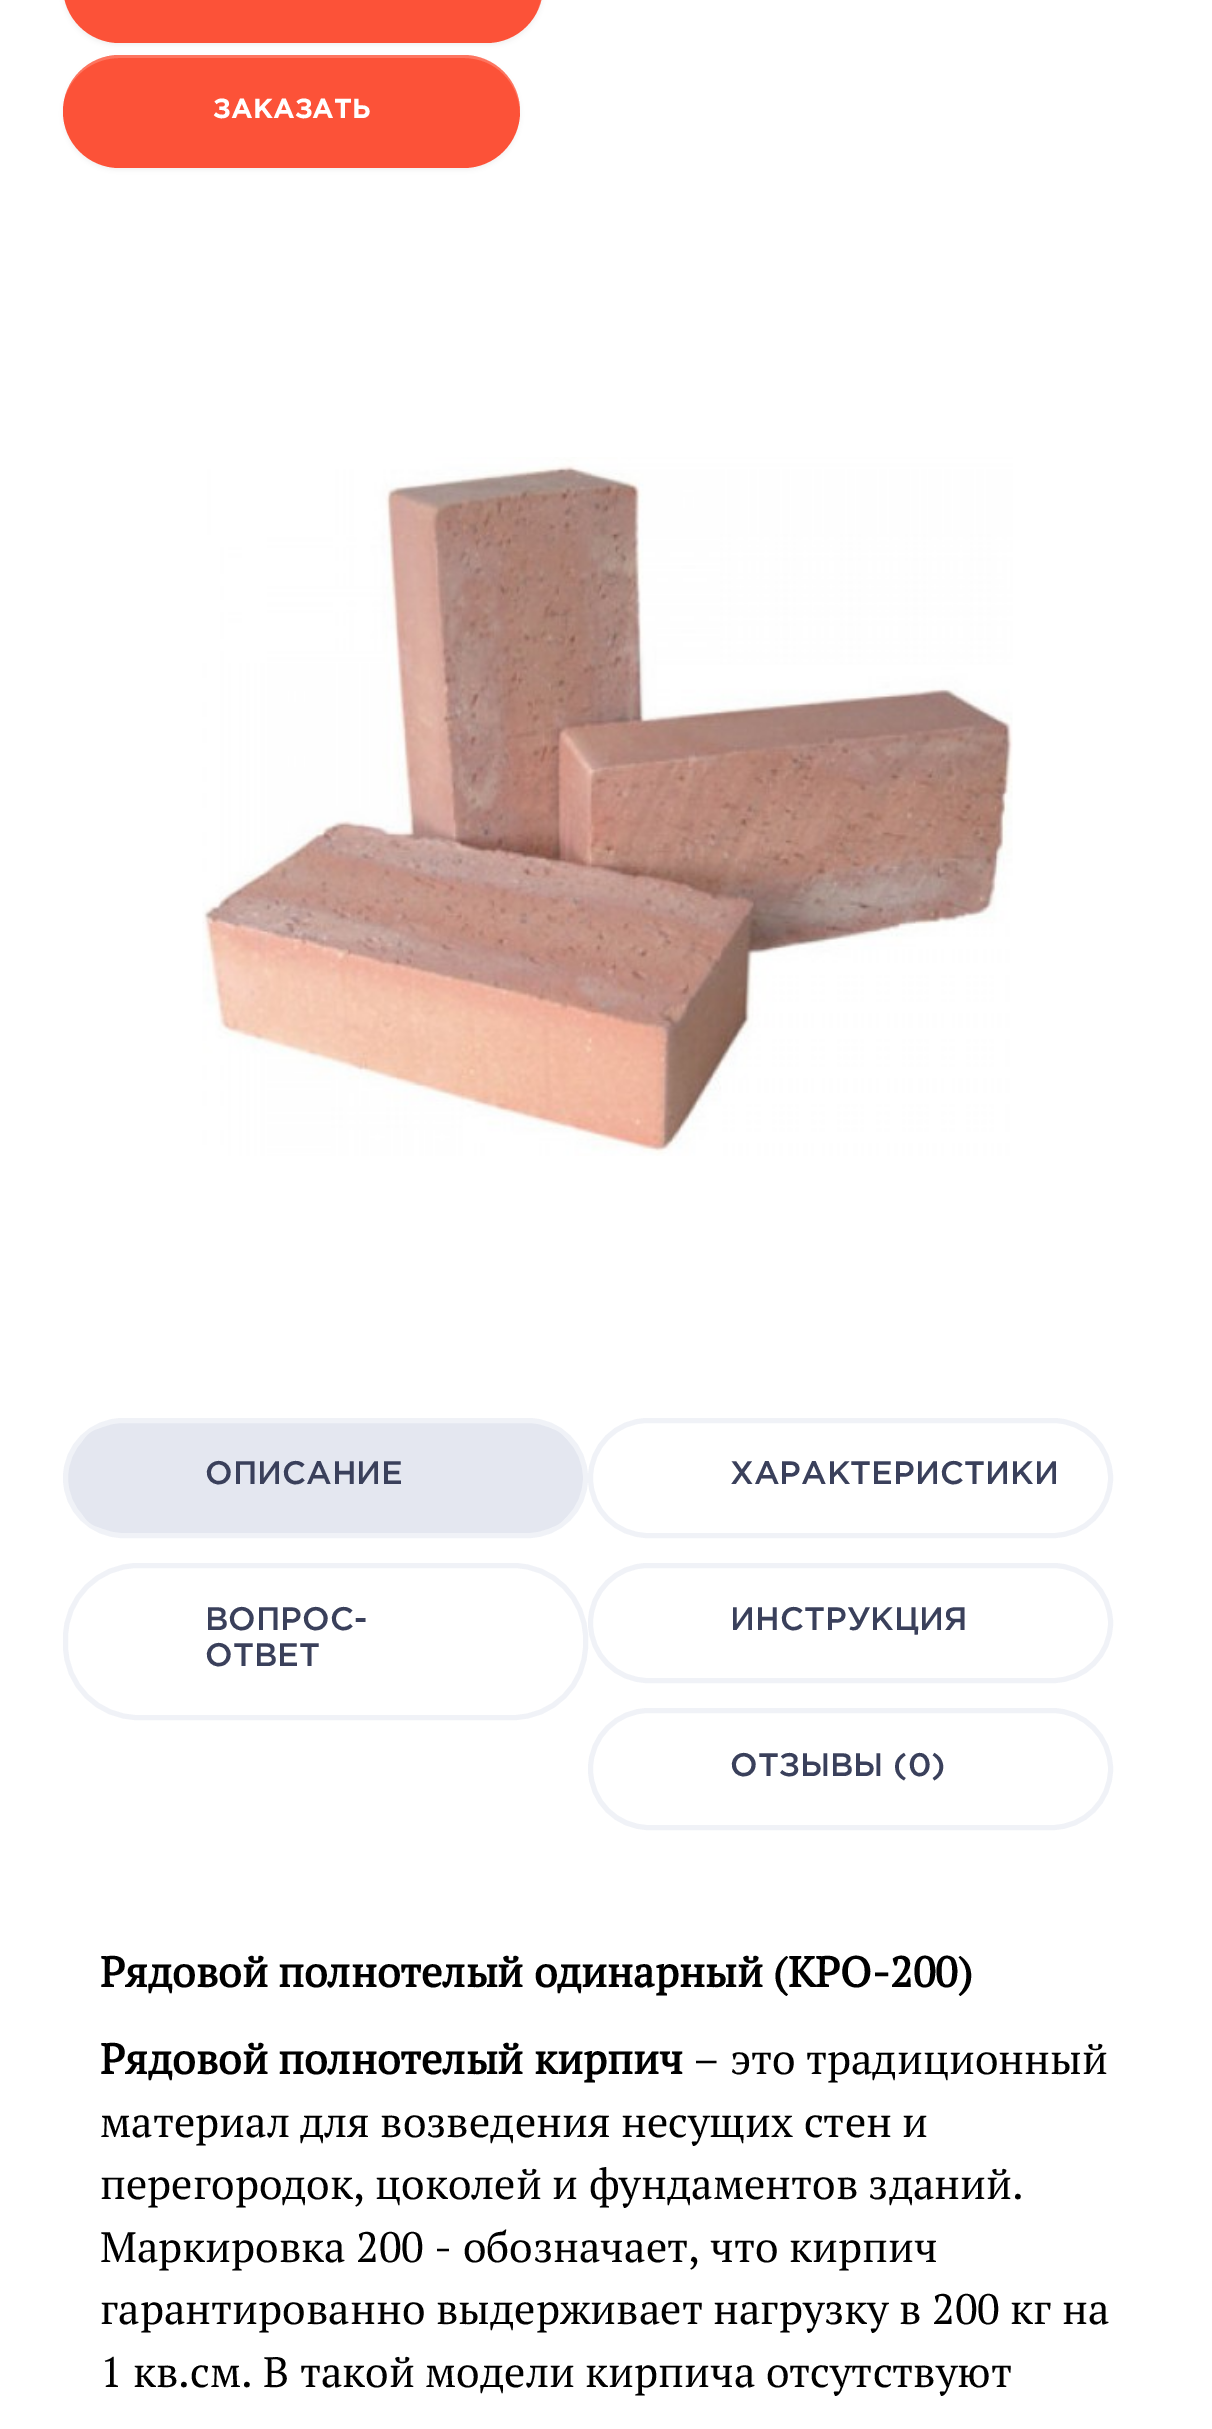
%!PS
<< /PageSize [1212 2429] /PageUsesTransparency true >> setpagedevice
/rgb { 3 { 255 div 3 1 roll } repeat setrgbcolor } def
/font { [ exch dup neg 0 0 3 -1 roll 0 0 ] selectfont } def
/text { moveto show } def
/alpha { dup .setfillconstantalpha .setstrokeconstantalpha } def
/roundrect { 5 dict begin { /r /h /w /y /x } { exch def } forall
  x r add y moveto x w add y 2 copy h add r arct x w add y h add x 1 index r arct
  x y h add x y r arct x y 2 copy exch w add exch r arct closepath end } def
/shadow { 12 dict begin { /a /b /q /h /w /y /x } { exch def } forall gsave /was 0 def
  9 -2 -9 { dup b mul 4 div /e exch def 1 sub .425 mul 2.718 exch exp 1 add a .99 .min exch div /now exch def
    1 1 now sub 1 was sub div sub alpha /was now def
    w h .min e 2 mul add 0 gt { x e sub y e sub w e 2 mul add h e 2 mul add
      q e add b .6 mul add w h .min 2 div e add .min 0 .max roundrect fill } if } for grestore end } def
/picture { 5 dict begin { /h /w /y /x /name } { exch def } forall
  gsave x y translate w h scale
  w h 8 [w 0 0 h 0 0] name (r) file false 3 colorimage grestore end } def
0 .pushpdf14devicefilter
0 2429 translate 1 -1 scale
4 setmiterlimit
255 255 255 rgb
0 0 1212 2429 rectfill
0 0 0 rgb
63 -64 480 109 56 2.5 0.05 shadow
252 82 56 rgb
63 -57 480 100 56.5 roundrect fill
0.2 alpha
255 255 255 rgb
119 -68 moveto 367 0 rlineto 31 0 56 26 56 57 rcurveto 0 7 -1 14 -4 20 rcurveto 3 -7 5 -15 5 -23 rcurveto 0 -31 -25 -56 -57 -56 rcurveto -366 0 rlineto -25 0 -47 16 -54 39 rcurveto 8 -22 29 -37 53 -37 rcurveto closepath fill
1 alpha
0 0 0 rgb
63 58 457 112 56 2.5 0.05 shadow
252 82 56 rgb
63 55 457 113 56.5 roundrect fill
0.2 alpha
255 255 255 rgb
119 58 moveto 345 0 rlineto 31 0 55 24 56 55 rcurveto 0 -1 rlineto 0 -32 -25 -57 -56 -57 rcurveto -344 0 rlineto -26 0 -47 17 -54 39 rcurveto 8 -21 29 -36 53 -36 rcurveto closepath fill
1 alpha
(img_01.rgb) 202 457 811 699 picture
228 231 240 rgb
65.5 1420.5 520 115 57.5 roundrect gsave fill grestore
240 242 247 rgb
5 setlinewidth
stroke
228 231 240 rgb
80 1428 490 100 25 roundrect fill
240 242 247 rgb
590.5 1420.5 520 115 57.5 roundrect stroke
65.5 1565.5 520 152 72.5 roundrect stroke
590.5 1565.5 520 115 57.5 roundrect stroke
590.5 1710.5 520 117 58.5 roundrect stroke
/Gotham-Bold 27.5 font
255 255 255 rgb
(ЗАКАЗАТЬ) 213 118 text
/Gotham-Medium 32.5 font
58 64 91 rgb
(ОПИСАНИЕ) 205 1484 text
(ХАРАКТЕРИСТИКИ) 730 1484 text
(ВОПРОС-) 205 1630 text
(ОТВЕТ) 205 1666 text
(ИНСТРУКЦИЯ) 730 1630 text
(ОТЗЫВЫ \(0\)) 730 1776 text
/PTSerif-Bold 42.5 font
0 0 0 rgb
(Рядовой полнотелый одинарный \(КРО-200\)) 100 1987 text
(Рядовой полнотелый кирпич) 100 2074 text
/PTSerif-Regular 42.5 font
(– это традиционный) 693 2074 text
(материал для возведения несущих стен и) 100 2137 text
(перегородок, цоколей и фундаментов зданий.) 100 2199 text
(Маркировка 200 - обозначает, что кирпич) 100 2262 text
(гарантированно выдерживает нагрузку в 200 кг на) 100 2324 text
(1 кв.см. В такой модели кирпича отсутствуют) 100 2387 text
.poppdf14devicefilter showpage
